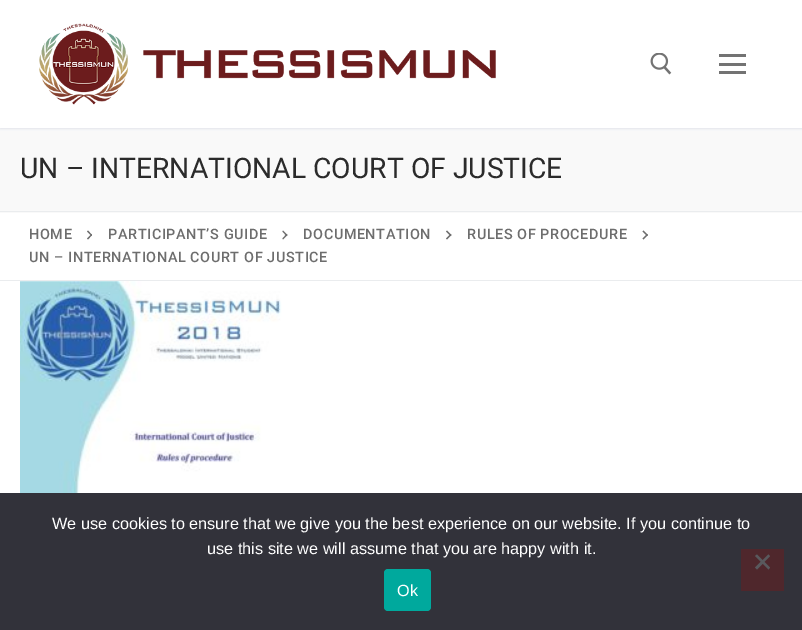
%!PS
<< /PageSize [802 630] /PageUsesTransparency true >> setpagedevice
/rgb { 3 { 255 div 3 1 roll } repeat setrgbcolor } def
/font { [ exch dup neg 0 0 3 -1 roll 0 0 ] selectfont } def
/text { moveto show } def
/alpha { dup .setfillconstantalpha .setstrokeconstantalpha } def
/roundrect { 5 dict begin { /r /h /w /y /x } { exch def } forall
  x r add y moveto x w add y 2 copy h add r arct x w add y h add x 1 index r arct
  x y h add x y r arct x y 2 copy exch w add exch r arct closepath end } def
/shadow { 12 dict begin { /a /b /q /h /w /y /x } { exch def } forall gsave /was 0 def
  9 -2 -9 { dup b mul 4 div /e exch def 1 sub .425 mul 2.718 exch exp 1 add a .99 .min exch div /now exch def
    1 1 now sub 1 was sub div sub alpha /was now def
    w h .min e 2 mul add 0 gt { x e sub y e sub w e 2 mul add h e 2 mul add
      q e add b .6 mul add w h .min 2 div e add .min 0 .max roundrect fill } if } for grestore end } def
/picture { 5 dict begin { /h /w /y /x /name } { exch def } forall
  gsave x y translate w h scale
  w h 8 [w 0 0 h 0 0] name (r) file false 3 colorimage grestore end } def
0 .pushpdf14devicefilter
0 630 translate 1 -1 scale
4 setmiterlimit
249 249 249 rgb
0 0 802 630 rectfill
225 229 234 rgb
0 1 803 128 0 1 1 shadow
255 255 255 rgb
0 0 802 128 rectfill
(img_01.rgb) 39 23 457 82 picture
(img_02.rgb) 650 53 22 22 picture
115 115 115 rgb
719 63 27 3 rectfill
719 54 27 3 rectfill
719 71 27 3 rectfill
234 236 238 rgb
0 211 802 1 rectfill
255 255 255 rgb
0 213 802 67 rectfill
234 236 238 rgb
0 280 802 1 rectfill
109 109 109 rgb
92 235 moveto -4 4.5 rlineto -1 -1 rlineto 4.5 -4.5 rlineto closepath fill
92 235 moveto -0.5 1 rlineto -4.5 -4.5 rlineto 1 -1 rlineto closepath fill
287.5 235 moveto -4.5 4.5 rlineto -0.5 -1 rlineto 4 -4.5 rlineto closepath fill
287.5 235 moveto -1 1 rlineto -4 -4.5 rlineto 0.5 -1 rlineto closepath fill
451.5 235 moveto -4.5 4.5 rlineto -1 -1 rlineto 4.5 -4.5 rlineto closepath fill
451.5 235 moveto -1 1 rlineto -4.5 -4.5 rlineto 1 -1 rlineto closepath fill
648 235 moveto -4.5 4.5 rlineto -1 -1 rlineto 4.5 -4.5 rlineto closepath fill
648 235 moveto -1 1 rlineto -4.5 -4.5 rlineto 1 -1 rlineto closepath fill
255 255 255 rgb
0 281 802 212 rectfill
(img_03.rgb) 20 281 262 212 picture
50 50 58 rgb
0 493 802 137 rectfill
0 169 157 rgb
384 569 47 42 4 roundrect fill
79 39 44 rgb
741 549 43 42 1 roundrect fill
89 89 93 rgb
768.5 554.5 moveto 1.5 1.5 rlineto -13 13.5 rlineto -2 -2 rlineto closepath fill
755 556 moveto 2 -1.5 rlineto 13 13 rlineto -1.5 2 rlineto closepath fill
/Roboto-Regular 28.3 font
43 43 43 rgb
(UN – INTERNATIONAL COURT OF JUSTICE) 20 178 text
/Roboto-Medium 14.4 font
109 109 109 rgb
29 239 moveto 0.6 0 (HOME) ashow
108 239 moveto 0.6 0 (PARTICIPANT’S GUIDE) ashow
303 239 moveto 0.6 0 (DOCUMENTATION) ashow
467 239 moveto 0.6 0 (RULES OF PROCEDURE) ashow
29 262 moveto 0.6 0 (UN – INTERNATIONAL COURT OF JUSTICE) ashow
/LiberationSans-Regular 16.25 font
255 255 255 rgb
(We use cookies to ensure that we give you the best experience on our website. If you continue to) 52 529 text
(use this site we will assume that you are happy with it.) 207 554 text
(Ok) 397 596 text
.poppdf14devicefilter showpage
